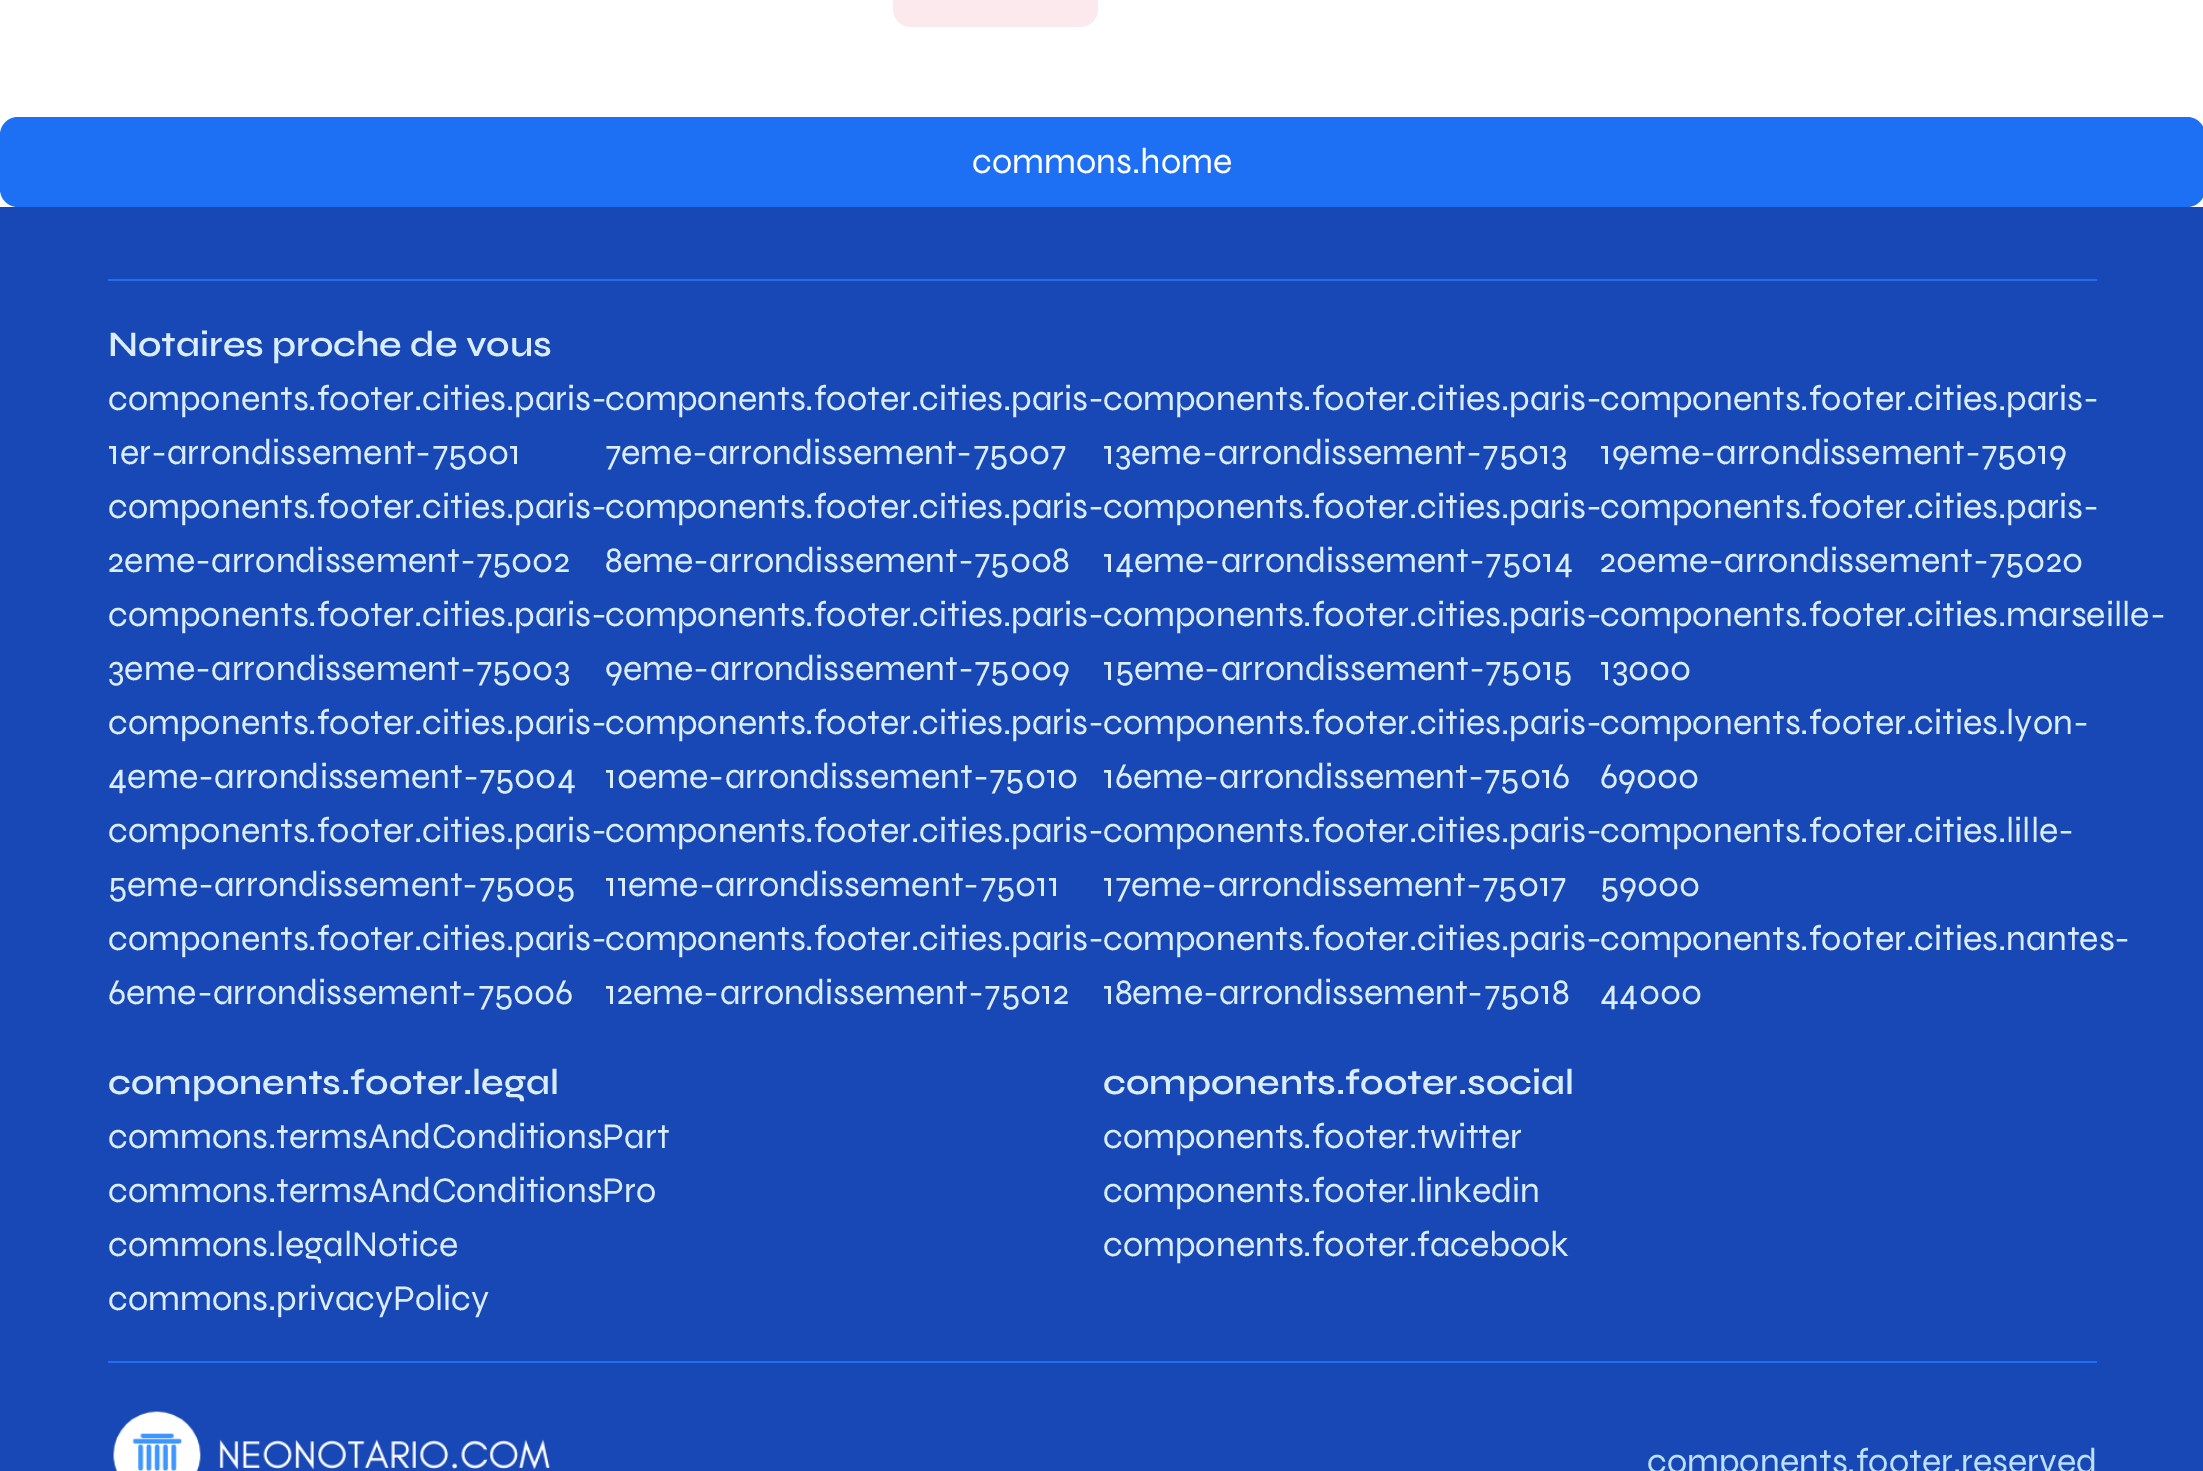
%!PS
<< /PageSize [2203 1471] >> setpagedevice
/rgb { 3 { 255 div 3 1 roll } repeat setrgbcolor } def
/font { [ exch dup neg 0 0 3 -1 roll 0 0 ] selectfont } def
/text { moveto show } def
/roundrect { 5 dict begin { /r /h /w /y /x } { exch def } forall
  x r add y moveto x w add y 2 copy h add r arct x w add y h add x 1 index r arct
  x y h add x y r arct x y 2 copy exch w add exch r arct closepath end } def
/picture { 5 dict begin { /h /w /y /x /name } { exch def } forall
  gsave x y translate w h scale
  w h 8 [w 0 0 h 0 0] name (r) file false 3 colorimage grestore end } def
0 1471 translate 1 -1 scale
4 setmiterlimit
255 255 255 rgb
0 0 2203 1471 rectfill
251 233 238 rgb
893 -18 205 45 18 roundrect fill
29 111 243 rgb
0 117 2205 90 18 roundrect fill
24 72 181 rgb
0 207 2203 1264 rectfill
29 111 243 rgb
108 279 1989 2 rectfill
108 1361 1989 2 rectfill
(img_01.rgb) 113 1411 437 60 picture
/Syne-Regular 36 font
255 255 255 rgb
(commons.home) 972 173 text
/Syne-SemiBold 36 font
218 237 255 rgb
(Notaires proche de vous) 108 356 text
/Syne-Regular 36 font
(components.footer.cities.paris-) 108 410 text
(1er-arrondissement-75001) 108 464 text
(components.footer.cities.paris-) 108 518 text
(2eme-arrondissement-75002) 108 572 text
(components.footer.cities.paris-) 108 626 text
(3eme-arrondissement-75003) 108 680 text
(components.footer.cities.paris-) 108 734 text
(4eme-arrondissement-75004) 108 788 text
(components.footer.cities.paris-) 108 842 text
(5eme-arrondissement-75005) 108 896 text
(components.footer.cities.paris-) 108 950 text
(6eme-arrondissement-75006) 108 1004 text
(components.footer.cities.paris-) 605 410 text
(7eme-arrondissement-75007) 605 464 text
(components.footer.cities.paris-) 605 518 text
(8eme-arrondissement-75008) 605 572 text
(components.footer.cities.paris-) 605 626 text
(9eme-arrondissement-75009) 605 680 text
(components.footer.cities.paris-) 605 734 text
(10eme-arrondissement-75010) 605 788 text
(components.footer.cities.paris-) 605 842 text
(11eme-arrondissement-75011) 605 896 text
(components.footer.cities.paris-) 605 950 text
(12eme-arrondissement-75012) 605 1004 text
(components.footer.cities.paris-) 1103 410 text
(13eme-arrondissement-75013) 1103 464 text
(components.footer.cities.paris-) 1103 518 text
(14eme-arrondissement-75014) 1103 572 text
(components.footer.cities.paris-) 1103 626 text
(15eme-arrondissement-75015) 1103 680 text
(components.footer.cities.paris-) 1103 734 text
(16eme-arrondissement-75016) 1103 788 text
(components.footer.cities.paris-) 1103 842 text
(17eme-arrondissement-75017) 1103 896 text
(components.footer.cities.paris-) 1103 950 text
(18eme-arrondissement-75018) 1103 1004 text
(components.footer.cities.paris-) 1600 410 text
(19eme-arrondissement-75019) 1600 464 text
(components.footer.cities.paris-) 1600 518 text
(20eme-arrondissement-75020) 1600 572 text
(components.footer.cities.marseille-) 1600 626 text
(13000) 1600 680 text
(components.footer.cities.lyon-) 1600 734 text
(69000) 1600 788 text
(components.footer.cities.lille-) 1600 842 text
(59000) 1600 896 text
(components.footer.cities.nantes-) 1600 950 text
(44000) 1600 1004 text
/Syne-SemiBold 36 font
(components.footer.legal) 108 1094 text
/Syne-Regular 36 font
(commons.termsAndConditionsPart) 108 1148 text
(commons.termsAndConditionsPro) 108 1202 text
(commons.legalNotice) 108 1256 text
(commons.privacyPolicy) 108 1310 text
/Syne-SemiBold 36 font
(components.footer.social) 1103 1094 text
/Syne-Regular 36 font
(components.footer.twitter) 1103 1148 text
(components.footer.linkedin) 1103 1202 text
(components.footer.facebook) 1103 1256 text
188 224 255 rgb
(components.footer.reserved) 1647 1473 text
showpage
